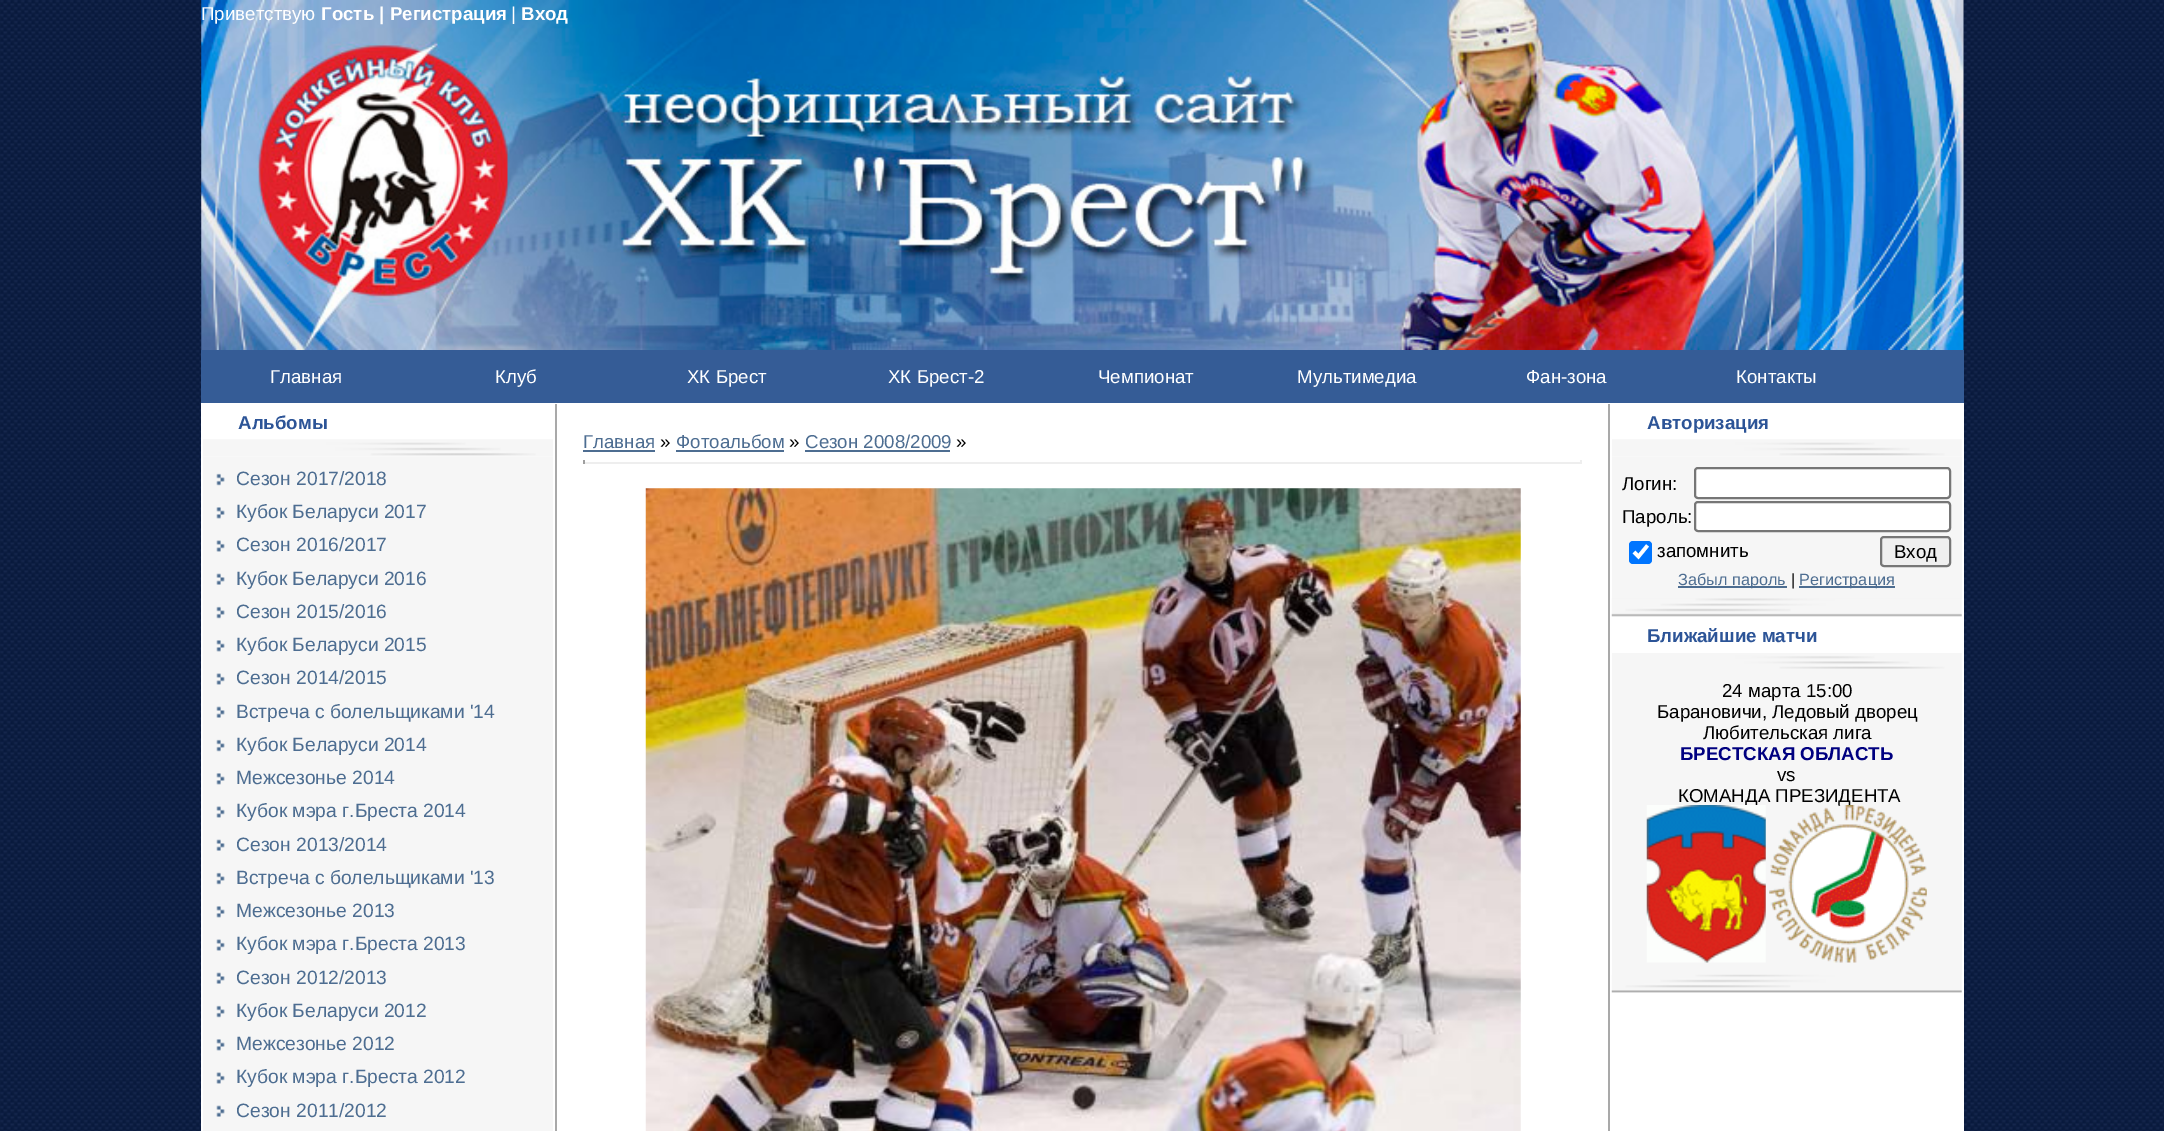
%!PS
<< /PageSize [2164 1131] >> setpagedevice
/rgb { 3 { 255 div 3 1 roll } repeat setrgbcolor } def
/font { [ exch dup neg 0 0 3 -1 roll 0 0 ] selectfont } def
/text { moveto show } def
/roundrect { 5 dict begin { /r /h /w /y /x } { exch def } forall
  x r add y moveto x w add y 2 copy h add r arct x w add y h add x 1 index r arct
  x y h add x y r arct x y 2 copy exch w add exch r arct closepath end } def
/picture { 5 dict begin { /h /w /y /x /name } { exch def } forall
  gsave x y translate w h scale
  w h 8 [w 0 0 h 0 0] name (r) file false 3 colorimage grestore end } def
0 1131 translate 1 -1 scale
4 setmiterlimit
255 255 255 rgb
0 0 2164 1131 rectfill
(img_01.rgb) 0 0 2164 1131 picture
(img_02.rgb) 201 0 1763 350 picture
53 92 150 rgb
201 350 1763 53 rectfill
255 255 255 rgb
201 403 1763 728 rectfill
(img_03.rgb) 203 439 350 18 picture
246 246 246 rgb
203 457 350 674 rectfill
(img_04.rgb) 216 473 9 13 picture
(img_05.rgb) 216 507 9 12 picture
(img_06.rgb) 216 540 9 12 picture
(img_07.rgb) 216 573 9 12 picture
(img_04.rgb) 216 606 9 13 picture
(img_05.rgb) 216 640 9 12 picture
(img_06.rgb) 216 673 9 12 picture
(img_07.rgb) 216 706 9 12 picture
(img_04.rgb) 216 739 9 13 picture
(img_05.rgb) 216 773 9 12 picture
(img_06.rgb) 216 806 9 12 picture
(img_07.rgb) 216 839 9 12 picture
(img_04.rgb) 216 872 9 13 picture
(img_05.rgb) 216 906 9 12 picture
(img_06.rgb) 216 939 9 12 picture
(img_07.rgb) 216 972 9 12 picture
(img_04.rgb) 216 1005 9 13 picture
(img_05.rgb) 216 1039 9 12 picture
(img_06.rgb) 216 1072 9 12 picture
(img_07.rgb) 216 1105 9 12 picture
169 169 169 rgb
1608 404 2 727 rectfill
555 404 2 727 rectfill
77 109 145 rgb
583 450 72 2 rectfill
676 450 108 2 rectfill
805 450 145 2 rectfill
238 238 238 rgb
1580 460 2 4 rectfill
583 462 999 2 rectfill
159 159 159 rgb
583 460 2 4 rectfill
(img_08.rgb) 645 488 876 643 picture
(img_09.rgb) 1612 439 350 18 picture
246 246 246 rgb
1612 457 350 142 rectfill
255 255 255 rgb
1695 468 255 30 3 roundrect gsave fill grestore
118 118 118 rgb
2 setlinewidth
stroke
255 255 255 rgb
1695 502 255 29 3 roundrect gsave fill grestore
118 118 118 rgb
stroke
0 117 255 rgb
1629 541 23 23 4 roundrect fill
255 255 255 rgb
3.6 setlinewidth
1634 552 moveto 4.5 4.5 rlineto 9 -11 rlineto stroke
239 239 239 rgb
1881 537 69 29 3 roundrect gsave fill grestore
118 118 118 rgb
2 setlinewidth
stroke
77 109 145 rgb
1678 586 109 2 rectfill
1799 586 96 2 rectfill
(img_10.rgb) 1611 598 351 19 picture
(img_11.rgb) 1612 653 350 17 picture
246 246 246 rgb
1612 670 350 305 rectfill
(img_14.rgb) 1611 974 351 19 picture
/LiberationSans-Regular 18.7 font
255 255 255 rgb
(Приветствую) 201 20 text
/LiberationSans-Bold 18.7 font
(Гость | Регистрация) 321 20 text
/LiberationSans-Regular 18.7 font
(|) 511 20 text
/LiberationSans-Bold 18.7 font
(Вход) 521 20 text
/LiberationSans-Regular 18.7 font
(Главная) 270 383 text
(Клуб) 495 383 text
(ХК Брест) 687 383 text
(ХК Брест-2) 888 383 text
(Чемпионат) 1098 383 text
(Мультимедиа) 1297 383 text
(Фан-зона) 1526 383 text
(Контакты) 1736 383 text
/LiberationSans-Bold 18.7 font
44 84 151 rgb
(Альбомы) 238 429 text
/LiberationSans-Regular 19.25 font
77 109 145 rgb
(Сезон 2017/2018) 236 485 text
(Кубок Беларуси 2017) 236 518 text
(Сезон 2016/2017) 236 551 text
(Кубок Беларуси 2016) 236 585 text
(Сезон 2015/2016) 236 618 text
(Кубок Беларуси 2015) 236 651 text
(Сезон 2014/2015) 236 684 text
(Встреча с болельщиками '14) 236 718 text
(Кубок Беларуси 2014) 236 751 text
(Межсезонье 2014) 236 784 text
(Кубок мэра г.Бреста 2014) 236 817 text
(Сезон 2013/2014) 236 851 text
(Встреча с болельщиками '13) 236 884 text
(Межсезонье 2013) 236 917 text
(Кубок мэра г.Бреста 2013) 236 950 text
(Сезон 2012/2013) 236 984 text
(Кубок Беларуси 2012) 236 1017 text
(Межсезонье 2012) 236 1050 text
(Кубок мэра г.Бреста 2012) 236 1083 text
(Сезон 2011/2012) 236 1117 text
/LiberationSans-Regular 18.7 font
(Главная) 583 448 text
0 0 0 rgb
(») 660 448 text
77 109 145 rgb
(Фотоальбом) 676 448 text
0 0 0 rgb
(») 789 448 text
77 109 145 rgb
(Сезон 2008/2009) 805 448 text
0 0 0 rgb
(») 956 448 text
/LiberationSans-Bold 18.7 font
44 84 151 rgb
(Авторизация) 1647 429 text
/LiberationSans-Regular 18.7 font
0 0 0 rgb
(Логин:) 1622 490 text
(Пароль:) 1622 523 text
(запомнить) 1657 557 text
(Вход) 1894 558 text
/LiberationSans-Regular 16.25 font
77 109 145 rgb
(Забыл пароль) 1678 585 text
0 0 0 rgb
(|) 1791 585 text
77 109 145 rgb
(Регистрация) 1799 585 text
/LiberationSans-Bold 18.7 font
44 84 151 rgb
(Ближайшие матчи) 1647 642 text
/LiberationSans-Regular 18.7 font
0 0 0 rgb
(24 марта 15:00) 1722 697 text
(Барановичи, Ледовый дворец) 1657 718 text
(Любительская лига) 1703 739 text
/LiberationSans-Bold 18.7 font
0 0 128 rgb
(БРЕСТСКАЯ ОБЛАСТЬ) 1680 760 text
/LiberationSans-Regular 18.7 font
0 0 0 rgb
(vs) 1777 781 text
(КОМАНДА ПРЕЗИДЕНТА) 1678 802 text
(img_12.rgb) 1646 805 120 158 picture
(img_13.rgb) 1769 805 158 158 picture
showpage
